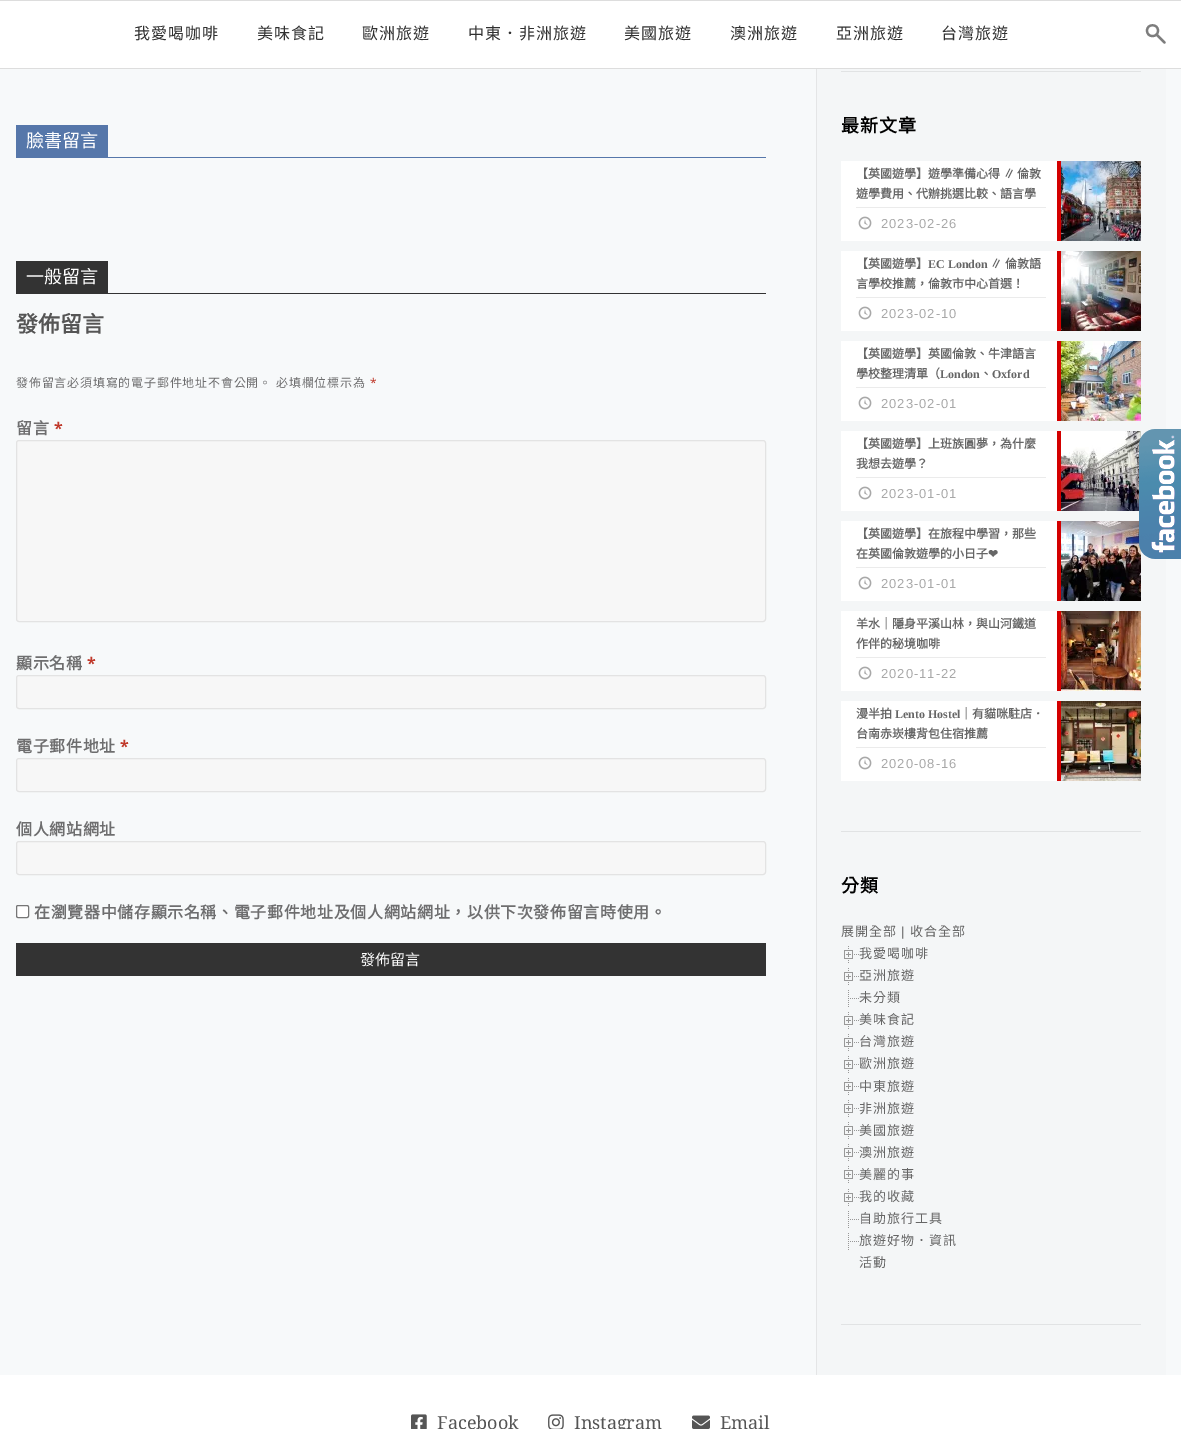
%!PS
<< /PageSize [1181 1429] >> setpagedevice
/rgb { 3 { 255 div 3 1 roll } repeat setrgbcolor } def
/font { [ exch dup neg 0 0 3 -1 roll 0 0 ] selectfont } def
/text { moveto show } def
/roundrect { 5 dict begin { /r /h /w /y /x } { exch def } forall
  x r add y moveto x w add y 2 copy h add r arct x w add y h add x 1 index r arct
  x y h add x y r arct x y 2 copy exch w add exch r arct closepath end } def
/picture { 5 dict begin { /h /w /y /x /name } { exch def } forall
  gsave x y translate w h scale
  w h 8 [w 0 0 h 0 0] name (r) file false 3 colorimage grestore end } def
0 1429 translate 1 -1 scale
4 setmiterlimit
247 249 250 rgb
0 0 1181 1429 rectfill
255 255 255 rgb
0 1 1181 67 rectfill
221 221 221 rgb
0 0 1181 1 rectfill
0 68 1181 1 rectfill
125 125 125 rgb
2.2 setlinewidth
1 setlinecap
1157 35 moveto 7.5 7.5 rlineto 1158 30.5 moveto 0 7.5 -11 7.5 -11 0 rcurveto 0 -7 11 -7 11 0 rcurveto closepath stroke
86 119 170 rgb
16 157 750 1 rectfill
16 125 92 32 rectfill
51 51 51 rgb
16 293 750 1 rectfill
16 261 92 32 rectfill
247 247 247 rgb
16.5 440.5 749 181 2.5 roundrect gsave fill grestore
227 227 227 rgb
1 setlinewidth
0 setlinecap
stroke
247 247 247 rgb
16.5 675.5 749 33 2.5 roundrect gsave fill grestore
227 227 227 rgb
stroke
247 247 247 rgb
16.5 758.5 749 33 2.5 roundrect gsave fill grestore
227 227 227 rgb
stroke
247 247 247 rgb
16.5 841.5 749 33 2.5 roundrect gsave fill grestore
227 227 227 rgb
stroke
255 255 255 rgb
16.5 905.5 12 12 1.5 roundrect gsave fill grestore
118 118 118 rgb
stroke
51 51 51 rgb
16 943 750 33 rectfill
244 246 247 rgb
817 69 349 1306 rectfill
228 229 230 rgb
816 69 1 1306 rectfill
225 227 228 rgb
841 71 300 1 rectfill
255 255 255 rgb
841 161 216 80 rectfill
235 235 235 rgb
856 207 190 1 rectfill
211 0 0 rgb
1057 161 4 80 rectfill
(img_01.rgb) 858 216 14 14 picture
(img_02.rgb) 1061 161 80 80 picture
255 255 255 rgb
841 251 216 80 rectfill
235 235 235 rgb
856 297 190 1 rectfill
211 0 0 rgb
1057 251 4 80 rectfill
(img_01.rgb) 858 306 14 14 picture
(img_03.rgb) 1061 251 80 80 picture
255 255 255 rgb
841 341 216 80 rectfill
235 235 235 rgb
856 387 190 1 rectfill
211 0 0 rgb
1057 341 4 80 rectfill
(img_01.rgb) 858 396 14 14 picture
(img_04.rgb) 1061 341 80 80 picture
255 255 255 rgb
841 431 216 80 rectfill
235 235 235 rgb
856 477 190 1 rectfill
211 0 0 rgb
1057 431 4 80 rectfill
(img_01.rgb) 858 486 14 14 picture
(img_05.rgb) 1061 431 80 80 picture
255 255 255 rgb
841 521 216 80 rectfill
235 235 235 rgb
856 567 190 1 rectfill
211 0 0 rgb
1057 521 4 80 rectfill
(img_01.rgb) 858 576 14 14 picture
(img_06.rgb) 1061 521 80 80 picture
255 255 255 rgb
841 611 216 80 rectfill
235 235 235 rgb
856 657 190 1 rectfill
211 0 0 rgb
1057 611 4 80 rectfill
(img_01.rgb) 858 666 14 14 picture
(img_07.rgb) 1061 611 80 80 picture
255 255 255 rgb
841 701 216 80 rectfill
235 235 235 rgb
856 747 190 1 rectfill
211 0 0 rgb
1057 701 4 80 rectfill
(img_01.rgb) 858 756 14 14 picture
(img_08.rgb) 1061 701 80 80 picture
225 227 228 rgb
841 831 300 1 rectfill
(img_09.rgb) 844 946 15 17 picture
(img_09.rgb) 844 968 15 17 picture
(img_10.rgb) 848 990 11 17 picture
(img_09.rgb) 844 1012 15 17 picture
(img_09.rgb) 844 1034 15 17 picture
(img_09.rgb) 844 1056 15 17 picture
(img_09.rgb) 844 1078 15 17 picture
(img_09.rgb) 844 1100 15 17 picture
(img_09.rgb) 844 1122 15 17 picture
(img_09.rgb) 844 1144 15 17 picture
(img_09.rgb) 844 1166 15 17 picture
(img_09.rgb) 844 1189 15 17 picture
(img_10.rgb) 848 1211 11 17 picture
(img_10.rgb) 848 1233 11 17 picture
841 1324 300 1 rectfill
255 255 255 rgb
0 1375 1181 54 rectfill
(img_11.rgb) 1139 429 42 130 picture
(img_12.rgb) 411 1414 16 15 picture
(img_13.rgb) 548 1414 16 15 picture
(img_14.rgb) 692 1415 18 14 picture
/NotoSansCJKTC-Regular 16 font
48 48 48 rgb
134 39 moveto 1 0 (我愛喝咖啡) ashow
257 39 moveto 1 0 (美味食記) ashow
362 39 moveto 1 0 (歐洲旅遊) ashow
468 39 moveto 1 0 (中東．非洲旅遊) ashow
624 39 moveto 1 0 (美國旅遊) ashow
730 39 moveto 1 0 (澳洲旅遊) ashow
836 39 moveto 1 0 (亞洲旅遊) ashow
941 39 moveto 1 0 (台灣旅遊) ashow
/NotoSansCJKTC-Regular 18 font
255 255 255 rgb
(臉書留言) 26 147 text
(一般留言) 26 283 text
/NotoSansCJKTC-Bold 22 font
85 85 85 rgb
(發佈留言) 16 332 text
/NotoSansCJKTC-Regular 12 font
110 110 111 rgb
16 387 moveto 0.8 0 (發佈留言必須填寫的電子郵件地址不會公開。) ashow
276 387 moveto 0.8 0 (必填欄位標示為) ashow
/NotoSans-Regular 12 font
192 57 43 rgb
370 387 moveto 0.8 0 (*) ashow
/NotoSansCJKTC-Bold 16 font
110 110 111 rgb
16 434 moveto 0.65 0 (留言) ashow
/NotoSans-Bold 16 font
192 57 43 rgb
54 434 moveto 0.65 0 (*) ashow
/NotoSansCJKTC-Bold 16 font
110 110 111 rgb
16 669 moveto 0.65 0 (顯示名稱) ashow
/NotoSans-Bold 16 font
192 57 43 rgb
87 669 moveto 0.65 0 (*) ashow
/NotoSansCJKTC-Bold 16 font
110 110 111 rgb
16 752 moveto 0.65 0 (電子郵件地址) ashow
/NotoSans-Bold 16 font
192 57 43 rgb
120 752 moveto 0.65 0 (*) ashow
/NotoSansCJKTC-Bold 16 font
110 110 111 rgb
16 835 moveto 0.65 0 (個人網站網址) ashow
34 918 moveto 0.65 0 (在瀏覽器中儲存顯示名稱、電子郵件地址及個人網站網址，以供下次發佈留言時使用。) ashow
/NotoSansCJKTC-Regular 15 font
255 255 255 rgb
(發佈留言) 360 965 text
/NotoSansCJKTC-Bold 18 font
0 0 0 rgb
841 132 moveto 1 0 (最新文章) ashow
/NotoSansCJKTC-Bold 12 font
102 102 102 rgb
(【英國遊學】遊學準備心得 ∥ 倫敦) 856 178 text
(遊學費用、代辦挑選比較、語言學) 856 198 text
/LiberationSans-Regular 13 font
168 168 168 rgb
881 228 moveto 1 0 (2023-02-26) ashow
/NotoSansCJKTC-Bold 12 font
102 102 102 rgb
(【英國遊學】) 856 268 text
/LiberationSerif-Bold 12 font
(EC London) 928 268 text
/NotoSansCJKTC-Bold 12 font
(∥) 990 268 text
(倫敦語) 1005 268 text
(言學校推薦，倫敦市中心首選！) 856 288 text
/LiberationSans-Regular 13 font
168 168 168 rgb
881 318 moveto 1 0 (2023-02-10) ashow
/NotoSansCJKTC-Bold 12 font
102 102 102 rgb
(【英國遊學】英國倫敦、牛津語言) 856 358 text
(學校整理清單（) 856 378 text
/LiberationSerif-Bold 12 font
(London) 940 378 text
/NotoSansCJKTC-Bold 12 font
(、) 980 378 text
/LiberationSerif-Bold 12 font
(Oxford) 992 378 text
/LiberationSans-Regular 13 font
168 168 168 rgb
881 408 moveto 1 0 (2023-02-01) ashow
/NotoSansCJKTC-Bold 12 font
102 102 102 rgb
(【英國遊學】上班族圓夢，為什麼) 856 448 text
(我想去遊學？) 856 468 text
/LiberationSans-Regular 13 font
168 168 168 rgb
881 498 moveto 1 0 (2023-01-01) ashow
/NotoSansCJKTC-Bold 12 font
102 102 102 rgb
(【英國遊學】在旅程中學習，那些) 856 538 text
(在英國倫敦遊學的小日子) 856 558 text
/DejaVuSans-Bold 12 font
(❤) 988 558 text
/LiberationSans-Regular 13 font
168 168 168 rgb
881 588 moveto 1 0 (2023-01-01) ashow
/NotoSansCJKTC-Bold 12 font
102 102 102 rgb
(羊水｜隱身平溪山林，與山河鐵道) 856 628 text
(作伴的秘境咖啡) 856 648 text
/LiberationSans-Regular 13 font
168 168 168 rgb
881 678 moveto 1 0 (2020-11-22) ashow
/NotoSansCJKTC-Bold 12 font
102 102 102 rgb
(漫半拍) 856 718 text
/LiberationSerif-Bold 12 font
(Lento Hostel) 895 718 text
/NotoSansCJKTC-Bold 12 font
(｜有貓咪駐店．) 960 718 text
(台南赤崁樓背包住宿推薦) 856 738 text
/LiberationSans-Regular 13 font
168 168 168 rgb
881 768 moveto 1 0 (2020-08-16) ashow
/NotoSansCJKTC-Bold 18 font
0 0 0 rgb
841 892 moveto 1 0 (分類) ashow
/NotoSansCJKTC-Regular 13 font
102 102 102 rgb
841 936 moveto 1 0 (展開全部) ashow
/LiberationSans-Regular 13 font
85 85 85 rgb
901 936 moveto 1 0 (|) ashow
/NotoSansCJKTC-Regular 13 font
102 102 102 rgb
910 936 moveto 1 0 (收合全部) ashow
859 958 moveto 1 0 (我愛喝咖啡) ashow
859 980 moveto 1 0 (亞洲旅遊) ashow
859 1002 moveto 1 0 (未分類) ashow
859 1024 moveto 1 0 (美味食記) ashow
859 1046 moveto 1 0 (台灣旅遊) ashow
859 1068 moveto 1 0 (歐洲旅遊) ashow
859 1091 moveto 1 0 (中東旅遊) ashow
859 1113 moveto 1 0 (非洲旅遊) ashow
859 1135 moveto 1 0 (美國旅遊) ashow
859 1157 moveto 1 0 (澳洲旅遊) ashow
859 1179 moveto 1 0 (美麗的事) ashow
859 1201 moveto 1 0 (我的收藏) ashow
859 1223 moveto 1 0 (自助旅行工具) ashow
859 1245 moveto 1 0 (旅遊好物．資訊) ashow
859 1267 moveto 1 0 (活動) ashow
/NotoSerif-Regular 18 font
85 85 85 rgb
(Facebook) 437 1429 text
(Instagram) 574 1429 text
(Email) 720 1429 text
showpage
